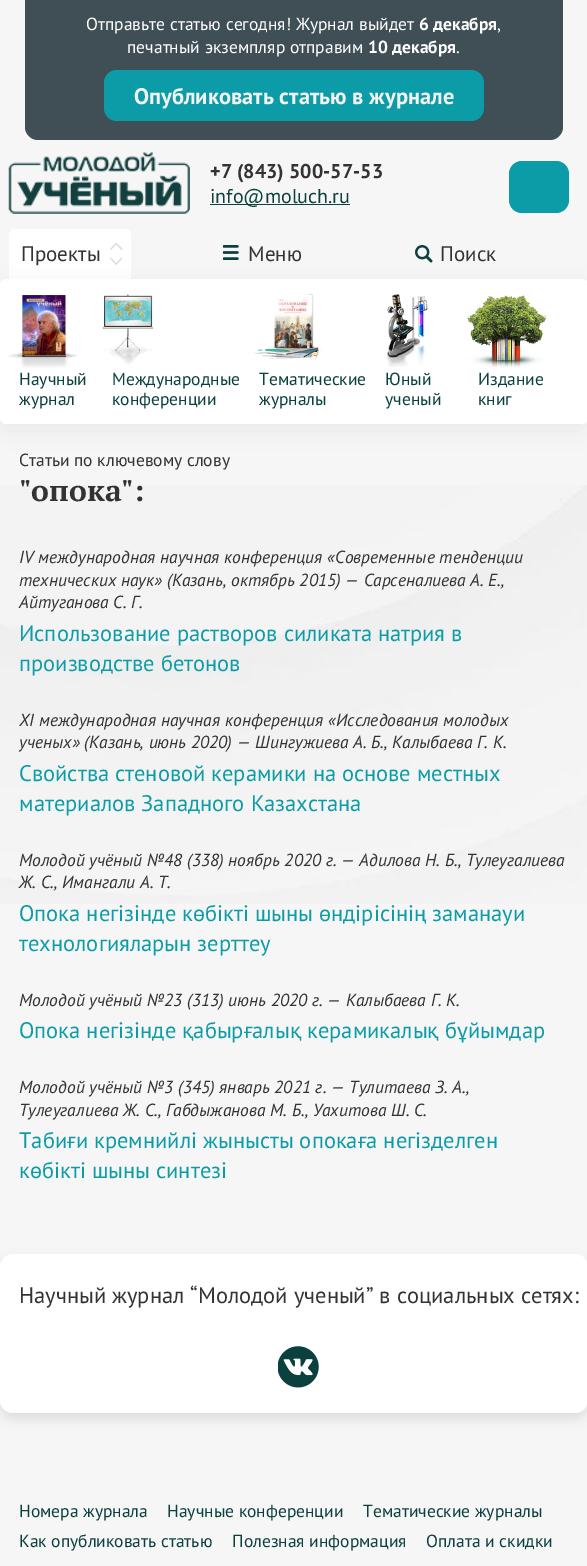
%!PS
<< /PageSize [587 1566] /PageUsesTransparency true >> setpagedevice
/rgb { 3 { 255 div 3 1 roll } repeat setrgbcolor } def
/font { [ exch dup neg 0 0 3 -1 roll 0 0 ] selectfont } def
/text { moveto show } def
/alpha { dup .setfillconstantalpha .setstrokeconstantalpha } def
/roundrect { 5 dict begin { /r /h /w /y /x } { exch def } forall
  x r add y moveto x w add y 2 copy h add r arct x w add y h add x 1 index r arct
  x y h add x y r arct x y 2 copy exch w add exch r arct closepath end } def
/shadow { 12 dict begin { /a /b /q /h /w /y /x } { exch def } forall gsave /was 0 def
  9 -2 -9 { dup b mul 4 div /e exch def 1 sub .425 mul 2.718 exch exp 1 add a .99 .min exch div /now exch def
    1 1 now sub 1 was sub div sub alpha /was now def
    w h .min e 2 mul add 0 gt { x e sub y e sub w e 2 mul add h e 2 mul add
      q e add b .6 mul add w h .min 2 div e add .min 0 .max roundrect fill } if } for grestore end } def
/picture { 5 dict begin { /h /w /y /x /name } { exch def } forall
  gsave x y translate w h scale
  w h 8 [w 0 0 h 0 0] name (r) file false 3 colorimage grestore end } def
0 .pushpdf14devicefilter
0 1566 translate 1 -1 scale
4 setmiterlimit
246 246 246 rgb
0 0 587 1566 rectfill
(img_01.rgb) 0 485 587 419 picture
63 79 85 rgb
25 0 moveto 538 0 rlineto 0 127 rlineto 0 7 -6 13 -13 13 rcurveto -512 0 rlineto -7 0 -13 -6 -13 -13 rcurveto closepath fill
12 156 167 rgb
104 70 380 51 13 roundrect fill
(img_02.rgb) 8 152 182 62 picture
10 64 62 rgb
210 204 140 1 rectfill
12 156 167 rgb
509 161 60 52 13 roundrect fill
255 255 255 rgb
15 229 moveto 110 0 rlineto 3.5 0 6 2.5 6 6 rcurveto 0 44 rlineto -122 0 rlineto 0 -44 rlineto 0 -3.5 2.5 -6 6 -6 rcurveto closepath fill
(img_03.rgb) 110 243 13 22 picture
(img_04.rgb) 223 245 16 15 picture
(img_05.rgb) 415 245 18 18 picture
0 0 0 rgb
0 284 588 145 6 12.5 0.05 shadow
255 255 255 rgb
0 279 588 145 6 roundrect fill
(img_06.rgb) 8 295 70 73 picture
(img_07.rgb) 102 294 51 71 picture
(img_08.rgb) 254 293 68 67 picture
(img_09.rgb) 386 294 42 73 picture
(img_10.rgb) 467 295 79 73 picture
0 0 0 rgb
0 1260 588 159 13 6 0.1 shadow
255 255 255 rgb
0 1254 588 159 13 roundrect fill
(img_11.rgb) 278 1346 41 42 picture
/PTSans-Regular 17.5 font
(Отправьте статью сегодня! Журнал выйдет) 86 30 text
/PTSans-Bold 17.5 font
(6 декабря) 419 30 text
/PTSans-Regular 17.5 font
(,) 497 30 text
(печатный экземпляр отправим) 127 53 text
/PTSans-Bold 17.5 font
(10 декабря) 368 53 text
/PTSans-Regular 17.5 font
(.) 456 53 text
/PTSans-Bold 22.5 font
242 242 242 rgb
(Опубликовать статью в журнале) 134 104 text
/PTSans-Bold 20 font
51 51 51 rgb
(+7 \(843\) 500-57-53) 210 178 text
/PTSans-Regular 20 font
10 64 62 rgb
(info@moluch.ru) 210 203 text
/PTSans-Regular 21 font
51 51 51 rgb
(Проекты) 21 261 text
(Меню) 248 261 text
(Поиск) 440 261 text
/PTSans-Regular 17.5 font
10 64 62 rgb
(Научный) 19 385 text
(журнал) 19 405 text
(Международные) 112 385 text
(конференции) 112 405 text
(Тематические) 259 385 text
(журналы) 259 405 text
(Юный) 385 385 text
(ученый) 385 405 text
(Издание) 478 385 text
(книг) 478 405 text
51 51 51 rgb
(Статьи по ключевому слову) 19 466 text
/PTSerif-Bold 30 font
("опока":) 19 501 text
/PTSans-Italic 17.5 font
(IV международная научная конференция «Современные тенденции) 19 563 text
(технических наук» \(Казань, октябрь 2015\) — Сарсеналиева А. Е.,) 19 586 text
(Айтуганова С. Г.) 19 608 text
/PTSans-Regular 22.5 font
12 156 167 rgb
(Использование растворов силиката натрия в) 19 641 text
(производстве бетонов) 19 671 text
/PTSans-Italic 17.5 font
51 51 51 rgb
(XI международная научная конференция «Исследования молодых) 19 726 text
(ученых» \(Казань, июнь 2020\) — Шингужиева А. Б., Калыбаева Г. К.) 19 748 text
/PTSans-Regular 22.5 font
12 156 167 rgb
(Свойства стеновой керамики на основе местных) 19 781 text
(материалов Западного Казахстана) 19 811 text
/PTSans-Italic 17.5 font
51 51 51 rgb
(Молодой учёный №48 \(338\) ноябрь 2020 г. — Адилова Н. Б., Тулеугалиева) 19 866 text
(Ж. С., Имангали А. Т.) 19 888 text
/PTSans-Regular 22.5 font
12 156 167 rgb
(Опока негізінде көбікті шыны өндірісінің заманауи) 19 921 text
(технологияларын зерттеу) 19 951 text
/PTSans-Italic 17.5 font
51 51 51 rgb
(Молодой учёный №23 \(313\) июнь 2020 г. — Калыбаева Г. К.) 19 1006 text
/PTSans-Regular 22.5 font
12 156 167 rgb
(Опока негізінде қабырғалық керамикалық бұйымдар) 19 1038 text
/PTSans-Italic 17.5 font
51 51 51 rgb
(Молодой учёный №3 \(345\) январь 2021 г. — Тулитаева З. А.,) 19 1093 text
(Тулеугалиева Ж. С., Габдыжанова М. Б., Уахитова Ш. С.) 19 1116 text
/PTSans-Regular 22.5 font
12 156 167 rgb
(Табиғи кремнийлі жынысты опокаға негізделген) 19 1148 text
(көбікті шыны синтезі) 19 1178 text
51 51 51 rgb
(Научный журнал “Молодой ученый” в социальных сетях:) 19 1303 text
/PTSans-Regular 17.5 font
10 64 62 rgb
(Номера журнала) 19 1517 text
(Научные конференции) 167 1517 text
(Тематические журналы) 363 1517 text
(Как опубликовать статью) 19 1547 text
(Полезная информация) 232 1547 text
(Оплата и скидки) 426 1547 text
.poppdf14devicefilter showpage
